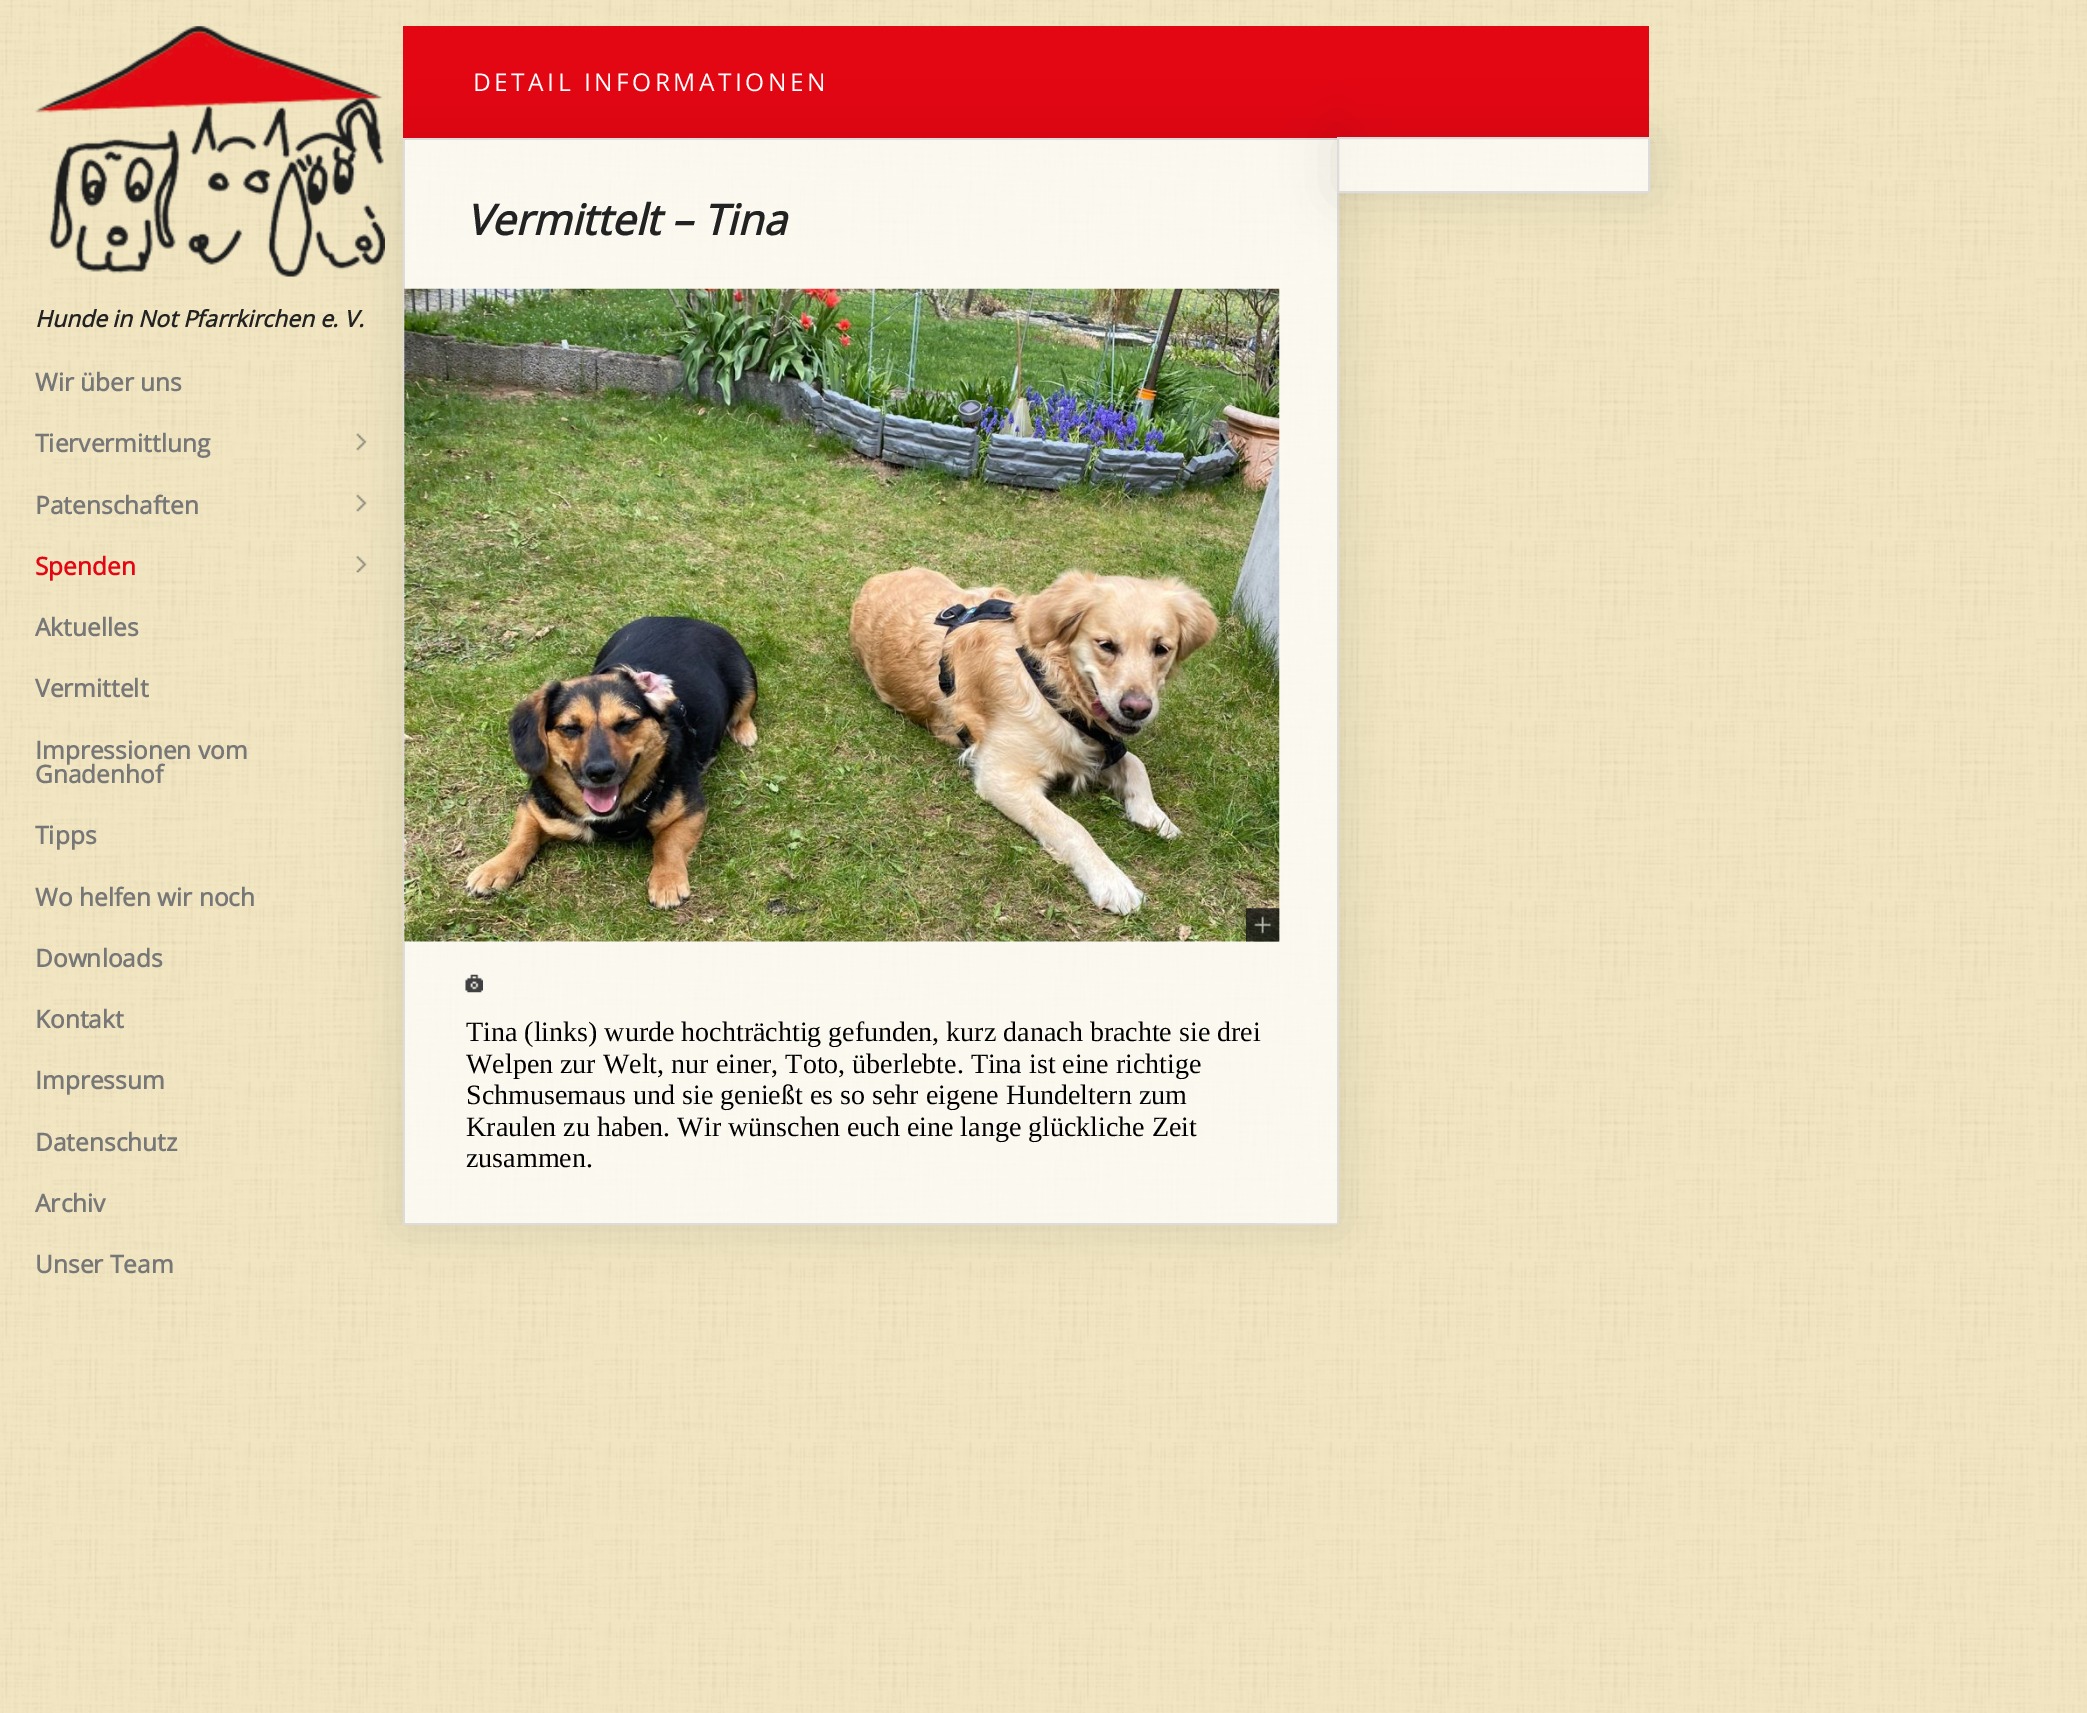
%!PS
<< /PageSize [2087 1713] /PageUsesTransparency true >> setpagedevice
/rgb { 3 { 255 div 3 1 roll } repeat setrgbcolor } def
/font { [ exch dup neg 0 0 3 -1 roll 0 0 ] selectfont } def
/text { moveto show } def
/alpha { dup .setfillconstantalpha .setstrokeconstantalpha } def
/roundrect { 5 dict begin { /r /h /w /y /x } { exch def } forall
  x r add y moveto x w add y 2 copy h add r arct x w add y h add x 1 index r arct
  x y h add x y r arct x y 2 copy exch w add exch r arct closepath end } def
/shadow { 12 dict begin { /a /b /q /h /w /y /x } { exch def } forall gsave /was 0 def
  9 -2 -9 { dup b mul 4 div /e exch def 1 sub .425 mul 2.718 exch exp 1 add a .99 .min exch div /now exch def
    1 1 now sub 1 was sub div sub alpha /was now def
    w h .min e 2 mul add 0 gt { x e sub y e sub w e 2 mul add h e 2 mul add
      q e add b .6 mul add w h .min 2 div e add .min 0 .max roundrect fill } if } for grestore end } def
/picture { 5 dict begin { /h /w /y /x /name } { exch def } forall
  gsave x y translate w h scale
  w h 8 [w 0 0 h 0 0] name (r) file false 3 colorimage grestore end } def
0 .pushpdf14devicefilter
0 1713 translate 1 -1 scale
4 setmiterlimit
244 231 188 rgb
0 0 2087 1713 rectfill
(img_01.rgb) 0 0 2087 1713 picture
227 6 19 rgb
403 26 1246 112 rectfill
gsave
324 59 moveto 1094 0 rlineto 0 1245 rlineto -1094 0 rlineto closepath 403 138 moveto 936 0 rlineto 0 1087 rlineto -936 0 rlineto closepath eoclip newpath
0 0 0 rgb
403 138 936 1087 0 26 0.1 shadow
grestore
(img_02.rgb) 35 26 350 251 picture
(img_03.rgb) 356 433 11 18 picture
(img_04.rgb) 356 494 11 18 picture
(img_05.rgb) 356 555 11 18 picture
0.75 alpha
255 255 255 rgb
405 140 932 1084 rectfill
1 alpha
220 220 220 rgb
403 138 936 2 rectfill
1337 193 2 1032 rectfill
gsave
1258 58 moveto 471 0 rlineto 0 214 rlineto -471 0 rlineto closepath 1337 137 moveto 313 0 rlineto 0 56 rlineto -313 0 rlineto closepath eoclip newpath
0 0 0 rgb
1337 137 313 56 0 26 0.1 shadow
grestore
0.75 alpha
255 255 255 rgb
1338 138 moveto 311 0 rlineto 0 54 rlineto -311 0 rlineto closepath fill
1 alpha
220 220 220 rgb
2 setlinewidth
1338 138 moveto 311 0 rlineto 0 54 rlineto -311 0 rlineto closepath stroke
(img_06.rgb) 402 1223 935 2 picture
403 138 2 1087 rectfill
255 255 255 rgb
404 289 875 653 rectfill
(img_07.rgb) 404 288 876 654 picture
(img_08.rgb) 1246 908 34 34 picture
(img_09.rgb) 465 974 18 19 picture
220 220 220 rgb
404 1223 872 1 rectfill
/OpenSans-BoldItalic 22.75 font
34 34 34 rgb
(Hunde in Not Pfarrkirchen e. V.) 35 327 text
/OpenSans-Bold 24.5 font
119 119 119 rgb
(Wir über uns) 35 391 text
(Tiervermittlung) 35 452 text
(Patenschaften) 35 514 text
227 6 19 rgb
(Spenden) 35 575 text
119 119 119 rgb
(Aktuelles) 35 636 text
(Vermittelt) 35 697 text
(Impressionen vom) 35 759 text
(Gnadenhof) 35 783 text
(Tipps) 35 844 text
(Wo helfen wir noch) 35 906 text
(Downloads) 35 967 text
(Kontakt) 35 1028 text
(Impressum) 35 1089 text
(Datenschutz) 35 1151 text
(Archiv) 35 1212 text
(Unser Team) 35 1273 text
/OpenSans-Regular 24.5 font
255 255 255 rgb
473 91 moveto 3.5 0 (DETAIL INFORMATIONEN) ashow
/OpenSans-BoldItalic 42 font
34 34 34 rgb
(Vermittelt – Tina) 466 235 text
/LiberationSerif-Regular 28 font
0 0 0 rgb
(Tina \(links\) wurde hochträchtig gefunden, kurz danach brachte sie drei) 466 1041 text
(Welpen zur Welt, nur einer, Toto, überlebte. Tina ist eine richtige) 466 1073 text
(Schmusemaus und sie genießt es so sehr eigene Hundeltern zum) 466 1104 text
(Kraulen zu haben. Wir wünschen euch eine lange glückliche Zeit) 466 1136 text
(zusammen.) 466 1167 text
.poppdf14devicefilter showpage
